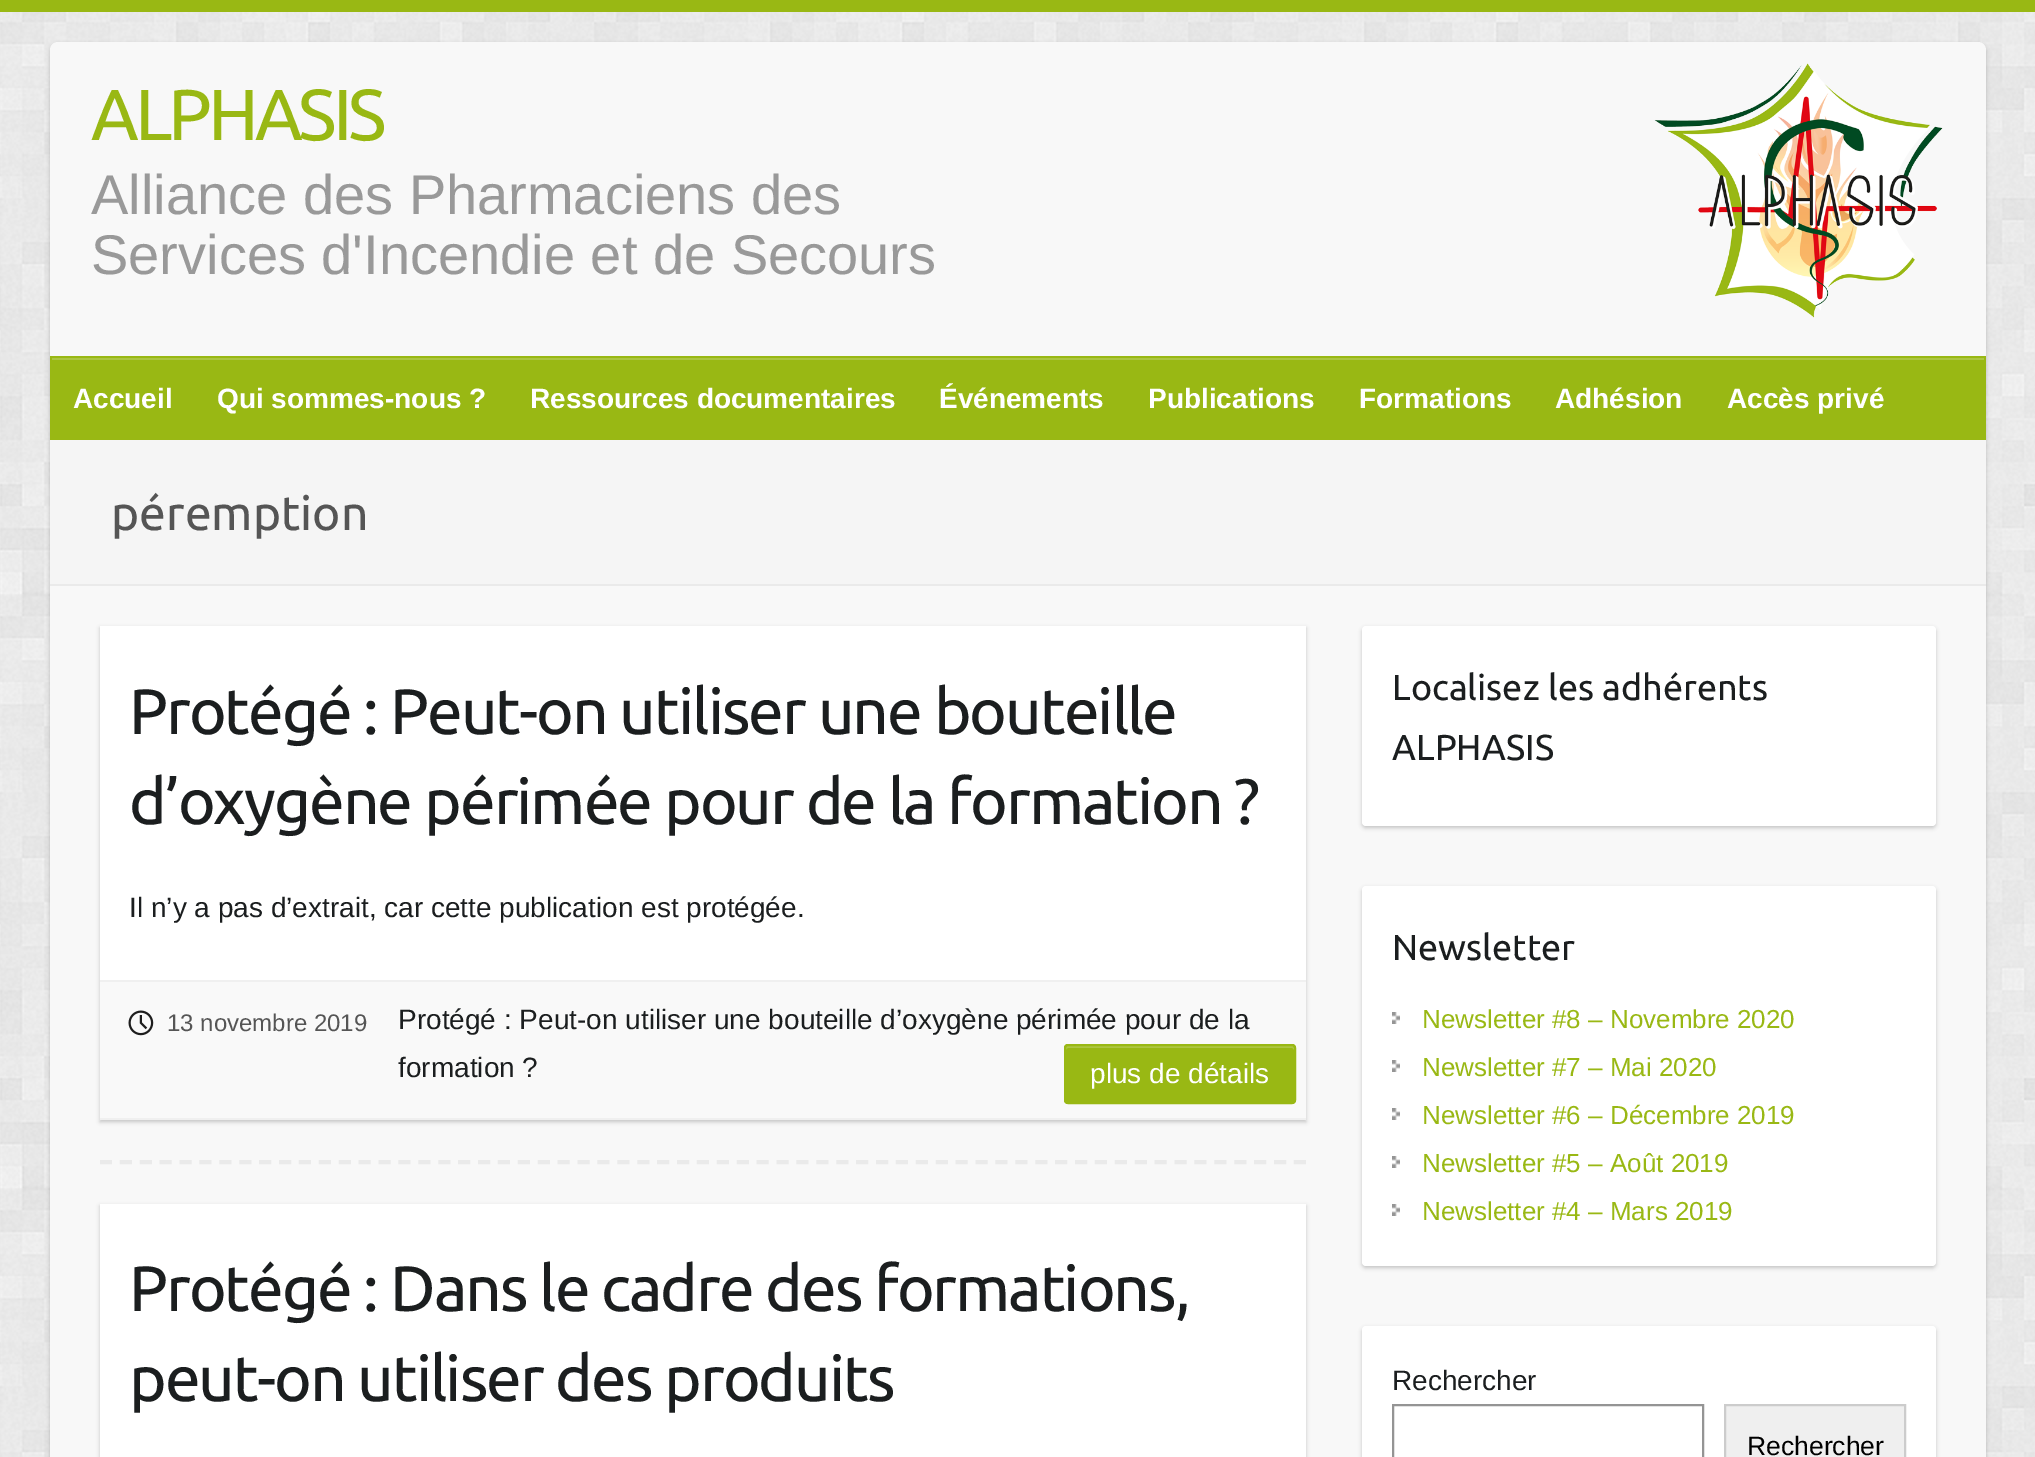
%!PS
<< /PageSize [2035 1457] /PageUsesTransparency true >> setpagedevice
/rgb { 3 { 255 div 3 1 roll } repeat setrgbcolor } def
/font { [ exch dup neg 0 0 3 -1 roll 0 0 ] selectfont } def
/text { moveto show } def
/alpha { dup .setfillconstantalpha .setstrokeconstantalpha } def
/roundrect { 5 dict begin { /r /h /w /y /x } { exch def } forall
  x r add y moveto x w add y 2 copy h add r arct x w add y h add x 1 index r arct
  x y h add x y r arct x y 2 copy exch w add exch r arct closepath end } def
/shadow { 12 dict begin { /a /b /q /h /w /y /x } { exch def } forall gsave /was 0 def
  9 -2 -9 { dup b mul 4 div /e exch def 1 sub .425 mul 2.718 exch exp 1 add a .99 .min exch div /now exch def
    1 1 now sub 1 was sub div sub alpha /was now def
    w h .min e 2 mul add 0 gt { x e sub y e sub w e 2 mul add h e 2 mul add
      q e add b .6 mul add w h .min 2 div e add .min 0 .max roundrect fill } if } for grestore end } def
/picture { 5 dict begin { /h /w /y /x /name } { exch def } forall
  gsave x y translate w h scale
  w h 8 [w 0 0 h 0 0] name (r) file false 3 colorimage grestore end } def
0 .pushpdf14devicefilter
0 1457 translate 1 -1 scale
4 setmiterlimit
255 255 255 rgb
0 0 2035 1457 rectfill
(img_01.rgb) 0 12 2035 1445 picture
153 184 20 rgb
0 0 2035 12 rectfill
0 0 0 rgb
50 44 1936 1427 8 2 0.2 shadow
248 248 248 rgb
50 42 1936 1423 8 roundrect fill
(img_02.rgb) 1654 63 289 255 picture
153 184 20 rgb
50 356 1936 84 rectfill
173 198 67 rgb
52 358 1932 2 rectfill
245 245 245 rgb
50 440 1936 144 rectfill
234 234 234 rgb
50 584 1936 2 rectfill
0 0 0 rgb
100 628 1206 494 0 2 0.2 shadow
255 255 255 rgb
100 626 1206 354 rectfill
249 249 249 rgb
100 982 1206 136 rectfill
240 240 240 rgb
100 980 1206 2 rectfill
100 1118 1206 2 rectfill
(img_03.rgb) 128 1010 26 26 picture
153 184 20 rgb
1064 1044 232 60 4 roundrect fill
173 198 67 rgb
1068 1048 moveto 224 0 rlineto 1 0 2 1 2 2 rcurveto 0 -2 0 -4 -2 -4 rcurveto -224 0 rlineto -2 0 -2 2 -2 4 rcurveto 0 -1 1 -2 2 -2 rcurveto closepath fill
153 184 20 rgb
2 setlinewidth
1065 1045 230 58 3 roundrect stroke
234 234 234 rgb
4 setlinewidth
[12 7.9] 0 setdash
100 1162 moveto 1206 0 rlineto stroke
0 0 0 rgb
100 1206 1206 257 0 2 0.2 shadow
255 255 255 rgb
100 1204 1206 253 rectfill
0 0 0 rgb
1362 628 574 200 4 2 0.2 shadow
255 255 255 rgb
1362 626 574 200 4 roundrect fill
0 0 0 rgb
1362 888 574 380 4 2 0.2 shadow
255 255 255 rgb
1362 886 574 380 4 roundrect fill
(img_04.rgb) 1392 1012 8 12 picture
(img_04.rgb) 1392 1060 8 12 picture
(img_04.rgb) 1392 1108 8 12 picture
(img_04.rgb) 1392 1156 8 12 picture
(img_04.rgb) 1392 1204 8 12 picture
0 0 0 rgb
1362 1328 574 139 4 2 0.2 shadow
255 255 255 rgb
1362 1326 574 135 4 roundrect fill
148 148 148 rgb
2 setlinewidth
[] 0 setdash
1393 1405 310 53 rectstroke
239 239 239 rgb
1725 1405 moveto 180 0 rlineto 0 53 rlineto -180 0 rlineto closepath gsave fill grestore
204 204 204 rgb
stroke
/Ubuntu-Regular 72 font
153 184 20 rgb
91 140 moveto -4 0 (ALPHASIS) ashow
/LiberationSans-Regular 56 font
153 153 153 rgb
(Alliance des Pharmaciens des) 91 214 text
(Services d'Incendie et de Secours) 91 274 text
/LiberationSans-Bold 28 font
255 255 255 rgb
(Accueil) 73 408 text
(Qui sommes-nous ?) 217 408 text
(Ressources documentaires) 530 408 text
(Événements) 939 408 text
(Publications) 1148 408 text
(Formations) 1359 408 text
(Adhésion) 1555 408 text
(Accès privé) 1727 408 text
/Ubuntu-Regular 48 font
85 85 85 rgb
(péremption) 111 530 text
/Ubuntu-Regular 64 font
27 30 31 rgb
129 734 moveto -2 0 (Protégé : Peut-on utiliser une bouteille) ashow
129 824 moveto -2 0 (d’oxygène périmée pour de la formation ?) ashow
/LiberationSans-Regular 28 font
(Il n’y a pas d’extrait, car cette publication est protégée.) 129 917 text
/LiberationSans-Regular 24 font
85 85 85 rgb
(13 novembre 2019) 167 1031 text
/LiberationSans-Regular 28 font
27 30 31 rgb
(Protégé : Peut-on utiliser une bouteille d’oxygène périmée pour de la) 398 1029 text
(formation ?) 398 1077 text
255 255 255 rgb
(plus de détails) 1090 1083 text
/Ubuntu-Regular 64 font
27 30 31 rgb
129 1311 moveto -2 0 (Protégé : Dans le cadre des formations,) ashow
129 1401 moveto -2 0 (peut-on utiliser des produits) ashow
/Ubuntu-Regular 36 font
(Localisez les adhérents) 1392 700 text
(ALPHASIS) 1392 760 text
(Newsletter) 1392 960 text
/LiberationSans-Regular 26 font
153 184 20 rgb
(Newsletter #8 – Novembre 2020) 1422 1028 text
(Newsletter #7 – Mai 2020) 1422 1076 text
(Newsletter #6 – Décembre 2019) 1422 1124 text
(Newsletter #5 – Août 2019) 1422 1172 text
(Newsletter #4 – Mars 2019) 1422 1220 text
/LiberationSans-Regular 28 font
27 30 31 rgb
(Rechercher) 1392 1390 text
/LiberationSans-Regular 26.5 font
0 0 0 rgb
(Rechercher) 1747 1455 text
.poppdf14devicefilter showpage
